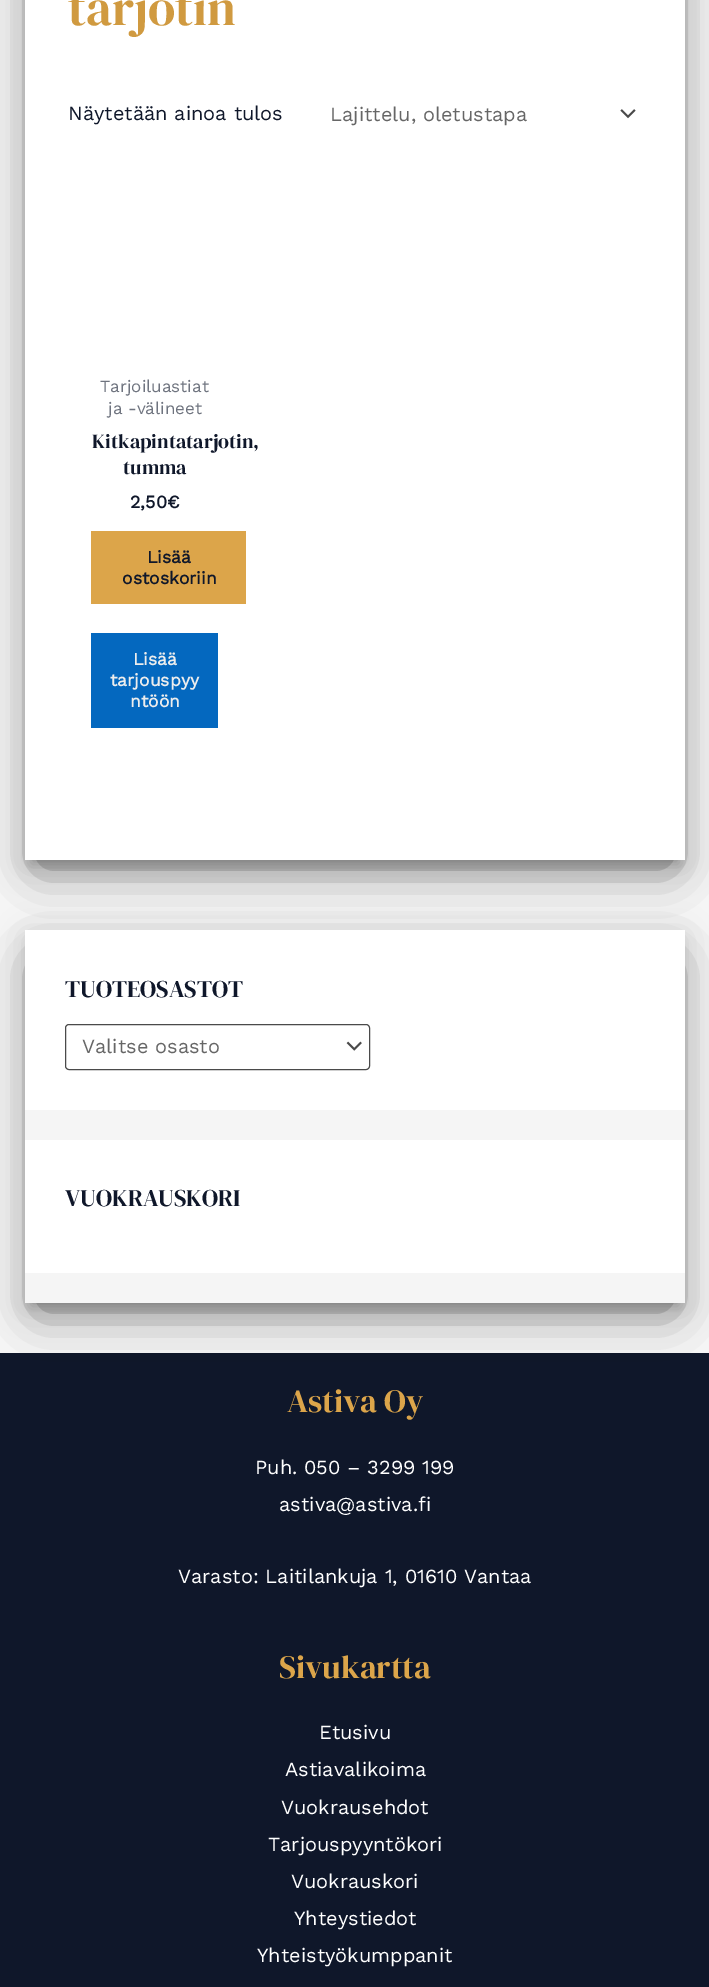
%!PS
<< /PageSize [709 1987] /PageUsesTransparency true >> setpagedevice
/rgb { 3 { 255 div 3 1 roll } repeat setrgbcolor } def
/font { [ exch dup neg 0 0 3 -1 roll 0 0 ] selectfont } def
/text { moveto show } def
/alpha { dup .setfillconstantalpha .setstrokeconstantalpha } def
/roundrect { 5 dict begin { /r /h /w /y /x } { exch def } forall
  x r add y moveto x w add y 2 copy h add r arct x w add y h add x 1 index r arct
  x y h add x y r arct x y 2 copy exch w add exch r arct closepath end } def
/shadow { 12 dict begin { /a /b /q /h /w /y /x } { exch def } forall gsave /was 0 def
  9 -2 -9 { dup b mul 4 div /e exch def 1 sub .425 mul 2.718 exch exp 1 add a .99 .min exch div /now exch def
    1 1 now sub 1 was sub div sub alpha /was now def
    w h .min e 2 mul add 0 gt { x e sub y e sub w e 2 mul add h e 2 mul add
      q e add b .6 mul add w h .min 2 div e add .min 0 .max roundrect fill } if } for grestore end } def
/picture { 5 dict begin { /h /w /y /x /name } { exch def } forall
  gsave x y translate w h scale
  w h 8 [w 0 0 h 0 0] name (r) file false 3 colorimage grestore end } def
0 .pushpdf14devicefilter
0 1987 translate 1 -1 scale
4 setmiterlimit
245 245 245 rgb
0 0 709 1987 rectfill
0 0 0 rgb
31 -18 648 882 0 6 0.2 shadow
25 -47 660 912 0 15.5 0.12 shadow
gsave
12 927 moveto 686 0 rlineto 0 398 rlineto -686 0 rlineto closepath 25 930 moveto 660 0 rlineto 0 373 rlineto -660 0 rlineto closepath eoclip newpath
31 946 648 360 0 6 0.2 shadow
grestore
15 23 42 rgb
0 1353 709 634 rectfill
gsave
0 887 moveto 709 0 rlineto 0 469 rlineto -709 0 rlineto closepath 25 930 moveto 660 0 rlineto 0 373 rlineto -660 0 rlineto closepath eoclip newpath
0 0 0 rgb
25 935 660 373 0 15.5 0.12 shadow
grestore
gsave
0 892 moveto 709 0 rlineto 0 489 rlineto -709 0 rlineto closepath 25 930 moveto 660 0 rlineto 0 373 rlineto -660 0 rlineto closepath eoclip newpath
0 0 0 rgb
40 965 630 343 0 24 0.56 shadow
grestore
255 255 255 rgb
25 930 660 180 rectfill
0 0 0 rgb
40 -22 630 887 0 24 0.56 shadow
255 255 255 rgb
25 0 660 860 rectfill
(img_01.rgb) 620 109 16 10 picture
220 165 74 rgb
91 531 155 73 rectfill
4 104 191 rgb
91 633 127 95 rectfill
(img_02.rgb) 346 1041 16 10 picture
74 74 74 rgb
65.5 1024.5 304 45 3.5 roundrect stroke
255 255 255 rgb
25 1140 660 133 rectfill
/DMSerifDisplay-Regular 50 font
208 154 64 rgb
(tarjotin) 68 25 text
/WorkSans-Regular 20 font
15 23 42 rgb
(Näytetään ainoa tulos) 68 120 text
102 102 102 rgb
(Lajittelu, oletustapa) 330 121 text
/WorkSans-Regular 17 font
111 116 127 rgb
(Tarjoiluastiat) 100 392 text
(ja -välineet) 108 414 text
/DMSerifDisplay-Regular 20 font
15 23 42 rgb
(Kitkapintatarjotin,) 92 448 text
(tumma) 123 474 text
/WorkSans-Bold 18 font
(2,50€) 130 508 text
/WorkSans-Bold 17.5 font
(Lisää) 147 563 text
(ostoskoriin) 122 584 text
237 237 237 rgb
(Lisää) 133 665 text
(tarjouspyy) 110 686 text
(ntöön) 130 707 text
/DMSerifDisplay-Regular 24 font
15 23 42 rgb
(TUOTEOSASTOT) 65 997 text
/WorkSans-Regular 20 font
102 102 102 rgb
(Valitse osasto) 82 1053 text
/DMSerifDisplay-Regular 24 font
15 23 42 rgb
(VUOKRAUSKORI) 65 1206 text
/DMSerifDisplay-Regular 32.5 font
220 165 74 rgb
(Astiva Oy) 287 1412 text
/WorkSans-Regular 20 font
255 255 255 rgb
(Puh. 050 – 3299 199) 255 1474 text
(astiva@astiva.fi) 279 1511 text
(Varasto: Laitilankuja 1, 01610 Vantaa) 178 1583 text
/DMSerifDisplay-Regular 32.5 font
220 165 74 rgb
(Sivukartta) 279 1678 text
/WorkSans-Regular 20 font
255 255 255 rgb
(Etusivu) 319 1739 text
(Astiavalikoima) 285 1776 text
(Vuokrausehdot) 281 1814 text
(Tarjouspyyntökori) 268 1851 text
(Vuokrauskori) 291 1888 text
(Yhteystiedot) 294 1925 text
(Yhteistyökumppanit) 257 1962 text
.poppdf14devicefilter showpage
